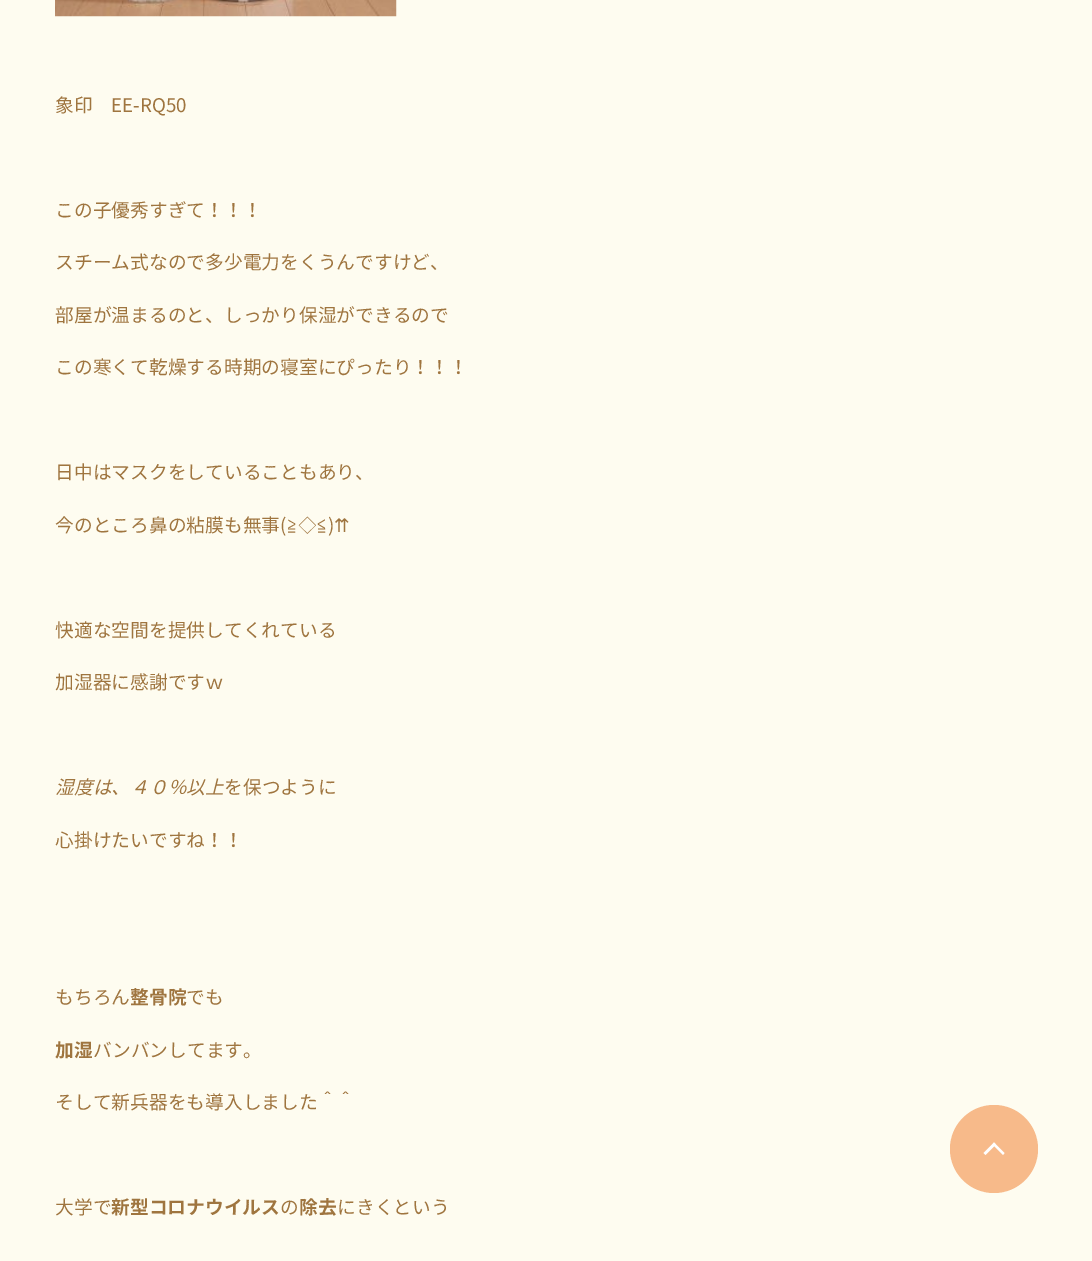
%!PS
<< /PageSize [1092 1261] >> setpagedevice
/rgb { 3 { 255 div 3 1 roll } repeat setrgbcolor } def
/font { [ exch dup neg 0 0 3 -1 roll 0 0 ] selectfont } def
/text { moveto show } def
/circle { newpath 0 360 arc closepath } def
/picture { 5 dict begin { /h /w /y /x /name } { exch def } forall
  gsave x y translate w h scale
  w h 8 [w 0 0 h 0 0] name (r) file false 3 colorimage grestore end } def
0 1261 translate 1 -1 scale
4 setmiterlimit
254 252 240 rgb
0 0 1092 1261 rectfill
(img_01.rgb) 55 0 342 17 picture
247 186 138 rgb
994 1149 44 circle fill
255 255 255 rgb
994 1142.5 moveto 10.5 10.5 rlineto -1.5 2 rlineto -10.5 -10.5 rlineto closepath fill
994 1142.5 moveto 2 2 rlineto -10.5 10.5 rlineto -2 -2 rlineto closepath fill
/NotoSansJP-Regular 18.75 font
159 117 63 rgb
(象印　EE-RQ50) 55 112 text
(この子優秀すぎて！！！) 55 217 text
(スチーム式なので多少電力をくうんですけど、) 55 269 text
(部屋が温まるのと、しっかり保湿ができるので) 55 322 text
(この寒くて乾燥する時期の寝室にぴったり！！！) 55 374 text
(日中はマスクをしていることもあり、) 55 479 text
(今のところ鼻の粘膜も無事\() 55 532 text
/WenQuanYiZenHei-Medium 18.75 font
(≧◇≦) 287 532 text
/NotoSansJP-Regular 18.75 font
(\)) 328 532 text
/DejaVuSans-Regular 18.75 font
(⇈) 334 532 text
/NotoSansJP-Regular 18.75 font
(快適な空間を提供してくれている) 55 637 text
(加湿器に感謝ですｗ) 55 689 text
/NotoSansJP-Italic 18.75 font
(湿度は、４０％以上) 55 794 text
/NotoSansJP-Regular 18.75 font
(を保つように) 224 794 text
(心掛けたいですね！！) 55 847 text
(もちろん) 55 1004 text
/NotoSansJP-Bold 18.75 font
(整骨院) 130 1004 text
/NotoSansJP-Regular 18.75 font
(でも) 186 1004 text
/NotoSansJP-Bold 18.75 font
(加湿) 55 1057 text
/NotoSansJP-Regular 18.75 font
(バンバンしてます。) 93 1057 text
(そして新兵器をも導入しました＾＾) 55 1109 text
(大学で) 55 1214 text
/NotoSansJP-Bold 18.75 font
(新型コロナウイルス) 111 1214 text
/NotoSansJP-Regular 18.75 font
(の) 280 1214 text
/NotoSansJP-Bold 18.75 font
(除去) 299 1214 text
/NotoSansJP-Regular 18.75 font
(にきくという) 337 1214 text
showpage
